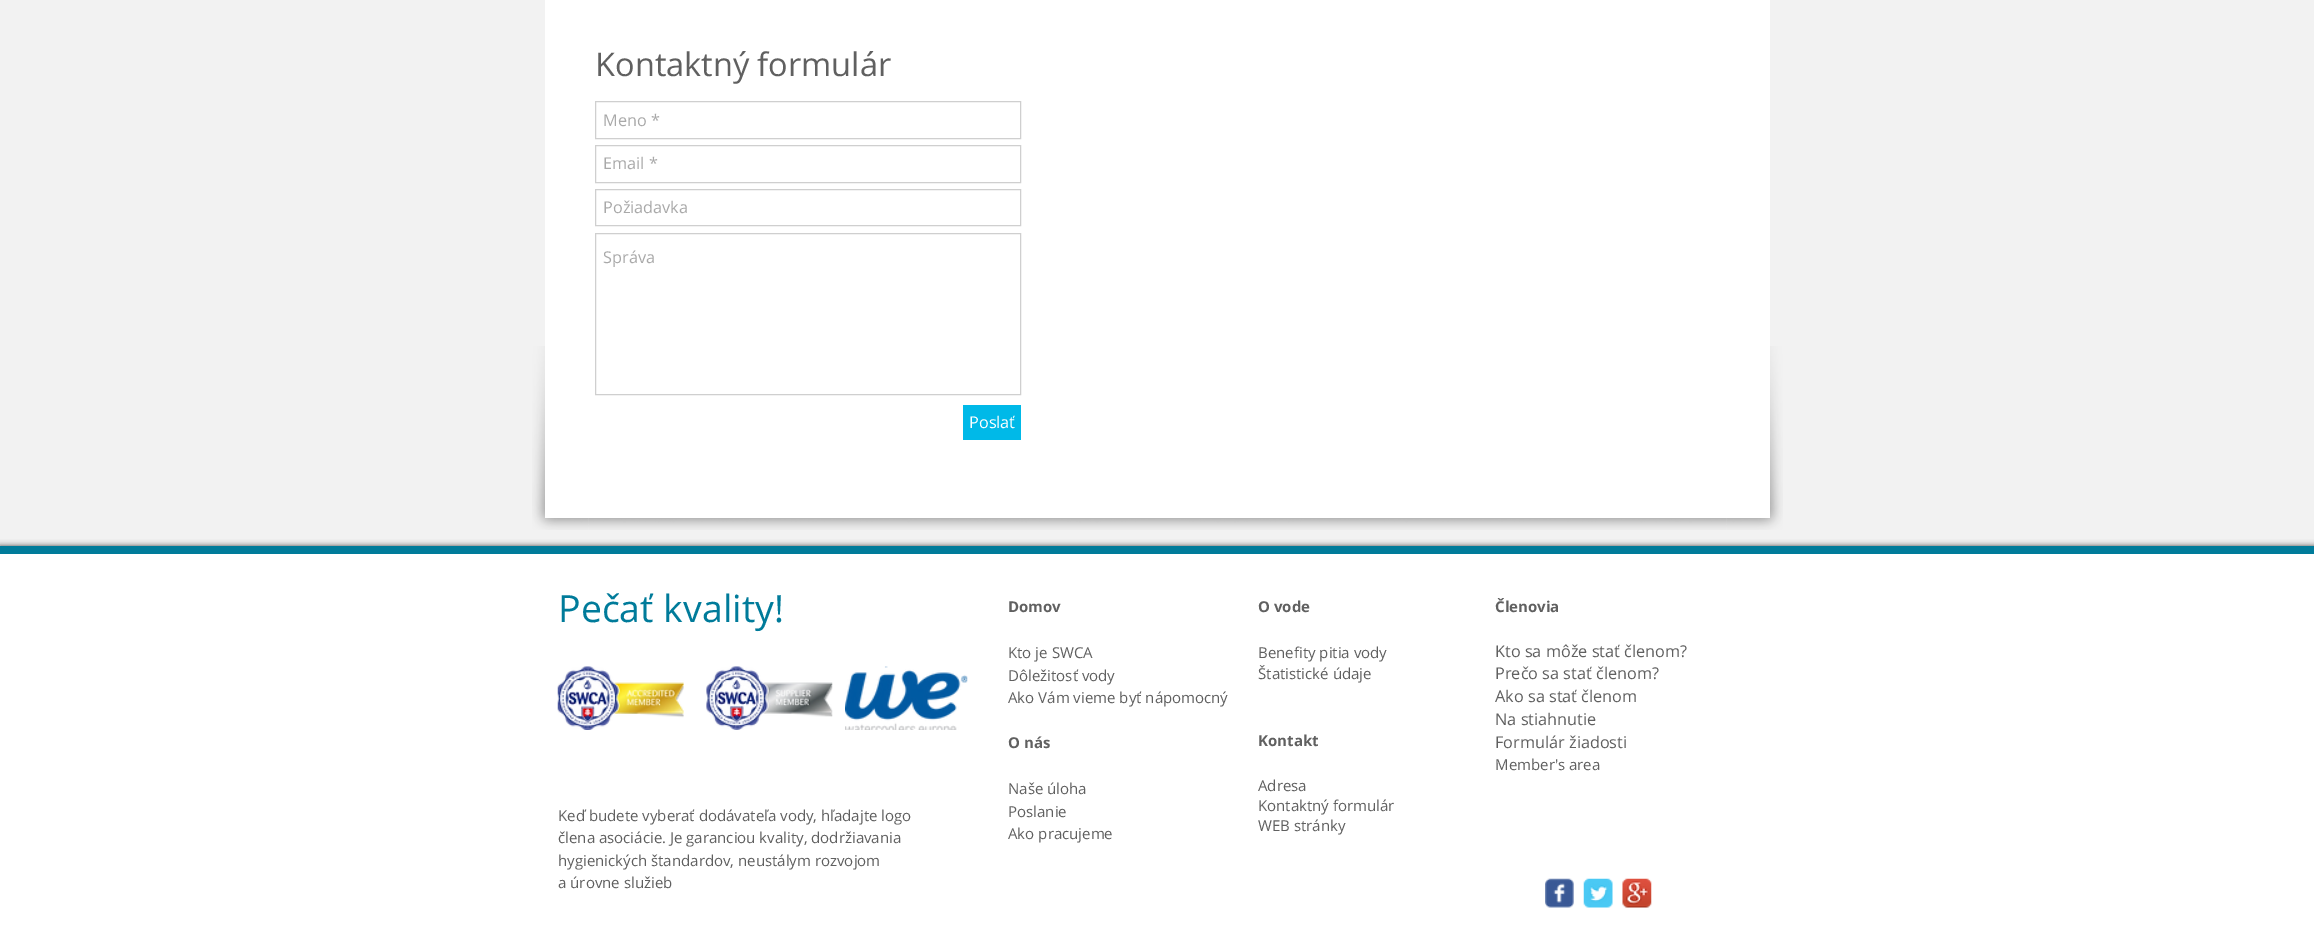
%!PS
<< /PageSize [2314 925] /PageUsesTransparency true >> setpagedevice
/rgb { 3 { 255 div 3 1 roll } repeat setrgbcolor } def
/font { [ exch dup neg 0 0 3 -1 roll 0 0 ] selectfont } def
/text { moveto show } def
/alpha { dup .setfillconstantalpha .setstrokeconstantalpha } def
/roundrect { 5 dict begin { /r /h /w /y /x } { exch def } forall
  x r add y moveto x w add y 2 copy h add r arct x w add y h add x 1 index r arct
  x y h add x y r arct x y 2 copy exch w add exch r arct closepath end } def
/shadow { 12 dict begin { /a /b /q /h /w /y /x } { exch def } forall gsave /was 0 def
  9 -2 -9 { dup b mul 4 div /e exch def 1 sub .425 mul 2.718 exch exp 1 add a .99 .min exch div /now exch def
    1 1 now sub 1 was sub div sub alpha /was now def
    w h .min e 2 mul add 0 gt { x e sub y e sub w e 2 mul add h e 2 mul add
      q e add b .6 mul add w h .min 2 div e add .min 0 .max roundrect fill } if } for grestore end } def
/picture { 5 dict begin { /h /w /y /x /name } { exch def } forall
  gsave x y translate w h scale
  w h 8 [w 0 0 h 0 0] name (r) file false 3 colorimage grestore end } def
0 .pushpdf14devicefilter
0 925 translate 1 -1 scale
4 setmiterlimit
242 242 242 rgb
0 0 2314 925 rectfill
(img_01.rgb) 532 346 57 184 picture
(img_02.rgb) 588 518 1139 12 picture
(img_03.rgb) 1726 346 57 184 picture
255 255 255 rgb
545 0 1225 518 rectfill
207 207 207 rgb
595.5 101.5 425 37 rectstroke
595.5 145.5 425 37 rectstroke
595.5 189.5 425 36 rectstroke
595.5 233.5 425 161 rectstroke
0 185 232 rgb
963 405 58 35 rectfill
0 0 0 rgb
0 546 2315 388 0 3 0.7 shadow
255 255 255 rgb
0 554 2314 371 rectfill
0 123 154 rgb
0 546 2314 8 rectfill
(img_04.rgb) 557 666 127 64 picture
(img_05.rgb) 706 666 127 64 picture
(img_06.rgb) 845 666 123 64 picture
(img_07.rgb) 1545 878 29 30 picture
(img_08.rgb) 1583 878 30 30 picture
(img_09.rgb) 1622 878 30 30 picture
/OpenSans-Regular 32.5 font
96 96 96 rgb
(Kontaktný formulár) 595 76 text
/OpenSans-Regular 16.25 font
169 169 169 rgb
(Meno *) 603 126 text
(Email *) 603 169 text
(Požiadavka) 603 213 text
(Správa) 603 263 text
255 255 255 rgb
(Poslať) 969 428 text
/OpenSans-Regular 37.5 font
0 123 154 rgb
(Pečať kvality!) 558 622 text
/OpenSans-Bold 15 font
96 96 96 rgb
(Domov) 1008 612 text
/OpenSans-Regular 15 font
(Kto je SWCA) 1008 658 text
(Dôležitosť vody) 1008 681 text
(Ako Vám vieme byť nápomocný) 1008 703 text
/OpenSans-Bold 15 font
(O nás) 1008 748 text
/OpenSans-Regular 15 font
(Naše úloha) 1008 794 text
(Poslanie) 1008 817 text
(Ako pracujeme) 1008 839 text
/OpenSans-Bold 15 font
(O vode) 1258 612 text
/OpenSans-Regular 15 font
(Benefity pitia vody) 1258 658 text
(Štatistické údaje) 1258 679 text
/OpenSans-Bold 15 font
(Kontakt) 1258 746 text
/OpenSans-Regular 15 font
(Adresa) 1258 791 text
(Kontaktný formulár) 1258 811 text
(WEB stránky) 1258 831 text
/OpenSans-Bold 15 font
(Členovia) 1495 612 text
/OpenSans-Regular 16.25 font
(Kto sa môže stať členom?) 1495 657 text
(Prečo sa stať členom?) 1495 679 text
(Ako sa stať členom) 1495 702 text
(Na stiahnutie) 1495 725 text
(Formulár žiadosti) 1495 748 text
/OpenSans-Regular 15 font
(Member's area) 1495 770 text
(Keď budete vyberať dodávateľa vody, hľadajte logo) 558 821 text
(člena asociácie. Je garanciou kvality, dodržiavania) 558 843 text
(hygienických štandardov, neustálym rozvojom) 558 866 text
(a úrovne služieb) 558 888 text
.poppdf14devicefilter showpage
